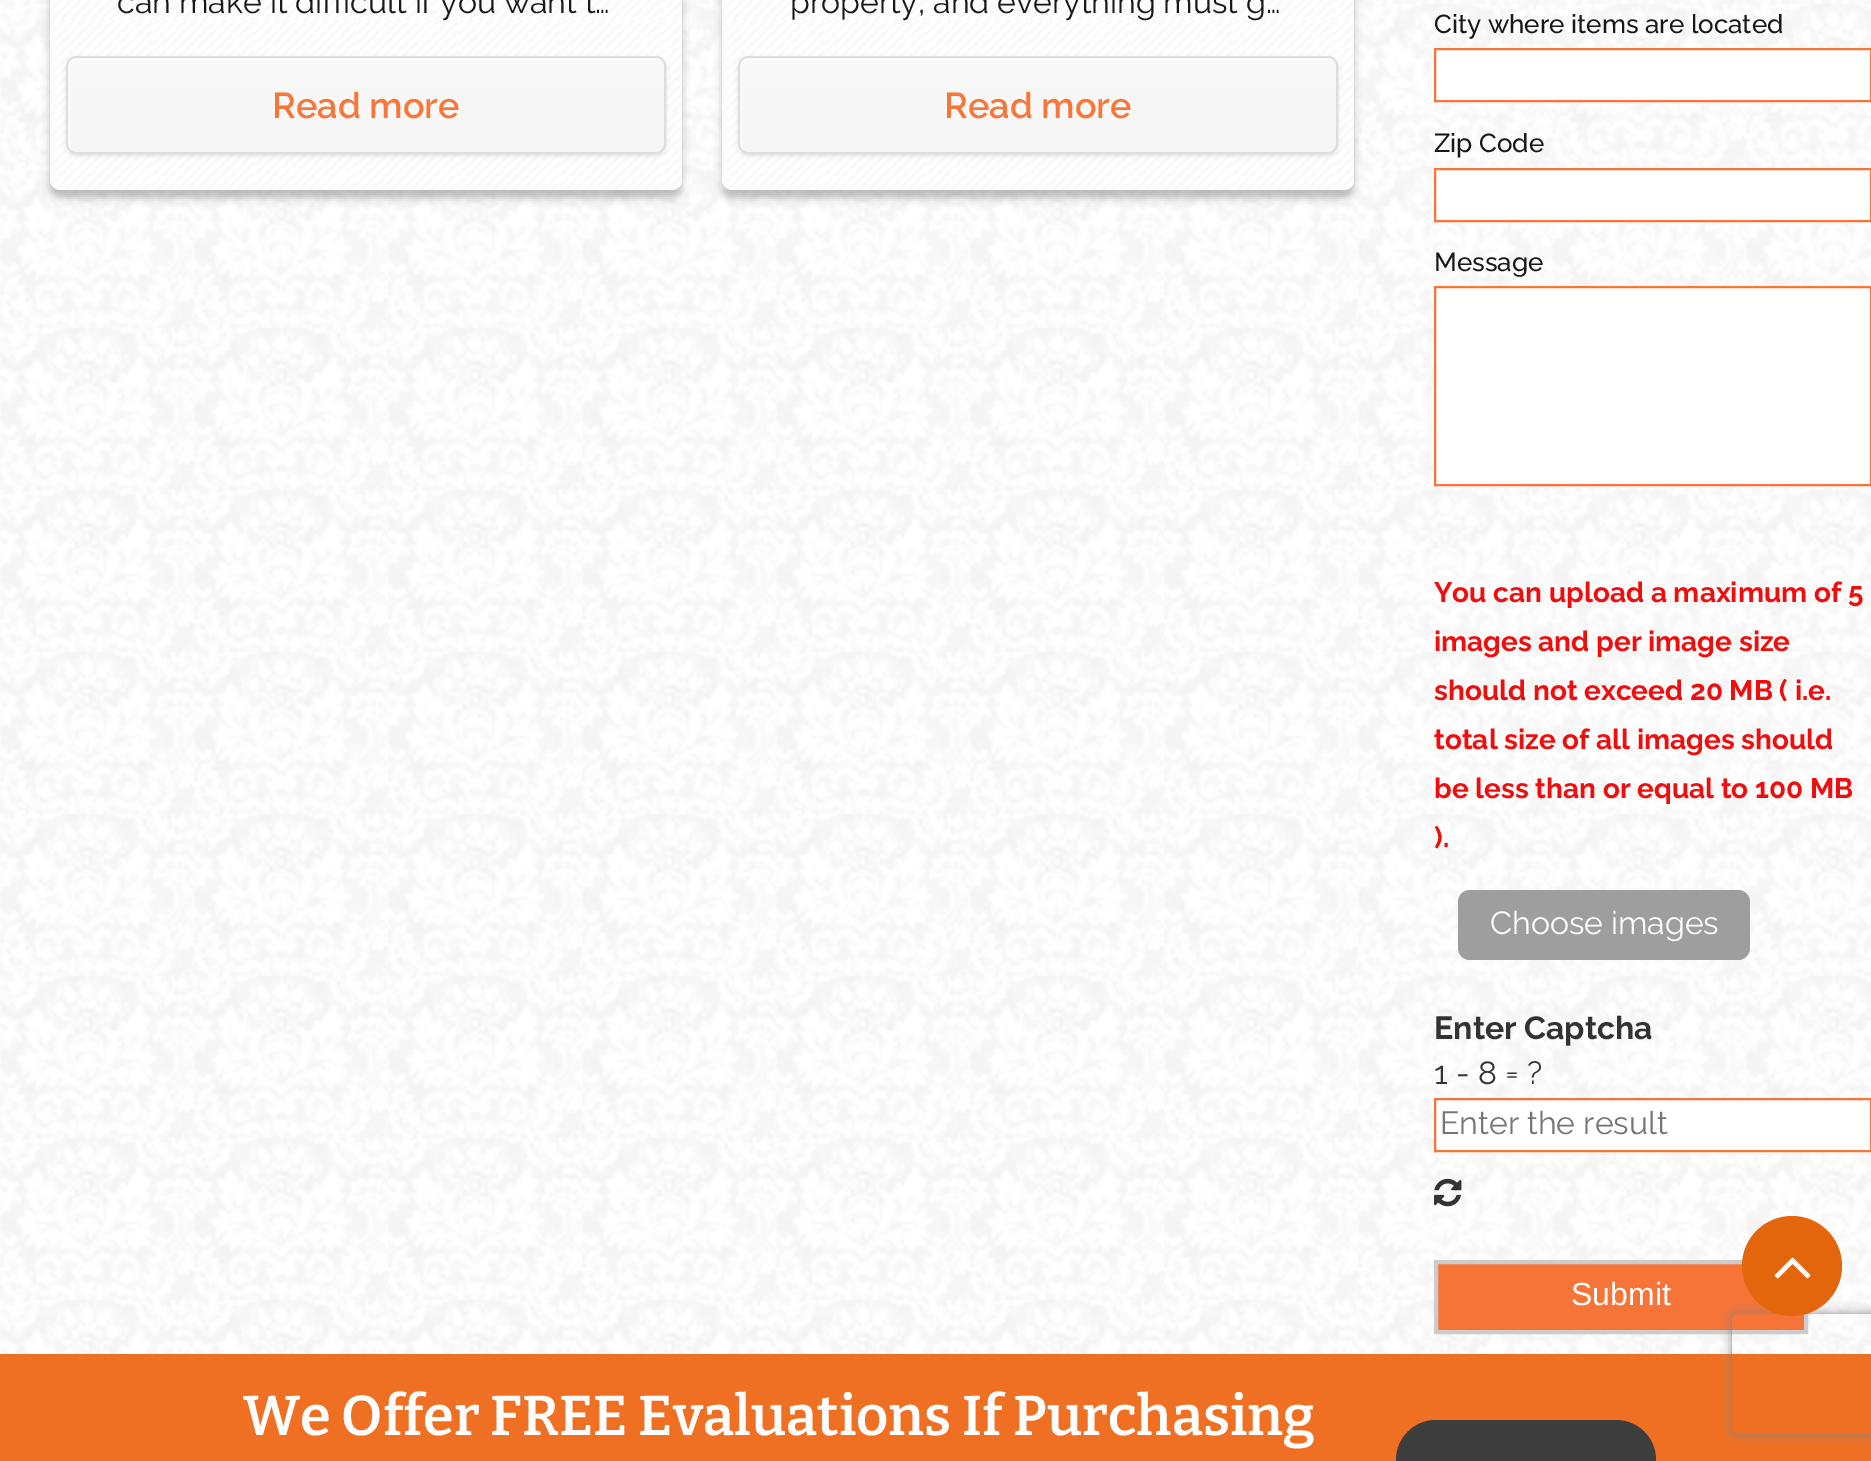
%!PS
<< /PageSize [1871 1461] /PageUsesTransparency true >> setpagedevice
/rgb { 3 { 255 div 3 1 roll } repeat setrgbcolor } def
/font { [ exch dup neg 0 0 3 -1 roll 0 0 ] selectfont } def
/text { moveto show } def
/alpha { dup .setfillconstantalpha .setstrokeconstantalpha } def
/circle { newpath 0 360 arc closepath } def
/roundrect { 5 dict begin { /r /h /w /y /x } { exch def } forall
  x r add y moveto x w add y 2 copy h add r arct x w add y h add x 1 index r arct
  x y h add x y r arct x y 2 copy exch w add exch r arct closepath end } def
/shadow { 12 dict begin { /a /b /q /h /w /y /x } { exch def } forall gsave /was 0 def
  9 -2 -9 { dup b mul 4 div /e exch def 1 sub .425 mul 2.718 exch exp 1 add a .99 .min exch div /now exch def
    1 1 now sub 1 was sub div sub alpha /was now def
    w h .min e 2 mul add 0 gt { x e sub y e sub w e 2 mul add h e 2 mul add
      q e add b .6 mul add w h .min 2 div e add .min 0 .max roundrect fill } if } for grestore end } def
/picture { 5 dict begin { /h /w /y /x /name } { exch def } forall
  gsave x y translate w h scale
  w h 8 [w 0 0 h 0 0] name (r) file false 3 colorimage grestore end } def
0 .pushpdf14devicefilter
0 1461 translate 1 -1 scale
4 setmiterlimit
255 255 255 rgb
0 0 1871 1461 rectfill
(img_01.rgb) 0 0 1871 1354 picture
0 0 0 rgb
50 -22 632 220 10 4 0.25 shadow
(img_02.rgb) 50 0 632 190 picture
66 58 600 98 10 2 0.1 shadow
gsave
66 56 600 98 10 roundrect clip newpath
gsave 66 58 moveto 600 0 rlineto 0 94 rlineto -600 0 rlineto closepath clip newpath
<< /ShadingType 2 /ColorSpace /DeviceRGB /Coords [366 58 366 152] /Extend [true true] /Function << /FunctionType 2 /Domain [0 1] /C0 [0.976 0.976 0.976] /C1 [0.965 0.965 0.965] /N 1 >> >> shfill grestore
grestore
252 252 252 rgb
78 60 moveto 581 0 rlineto 4 2 rlineto -1 -2 -4 -4 -7 -4 rcurveto -580 0 rlineto -4 0 -8 4 -8 8 rcurveto 0 78 rlineto 0 3 2 6 4 7 rcurveto -1 -2 -2 -3 -2 -5 rcurveto 0 -78 rlineto 0 -4 4 -8 8 -8 rcurveto closepath fill
224 221 221 rgb
2 setlinewidth
67 57 598 96 9 roundrect stroke
0 0 0 rgb
722 -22 632 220 10 4 0.25 shadow
(img_03.rgb) 722 0 632 190 picture
738 58 600 98 10 2 0.1 shadow
gsave
738 56 600 98 10 roundrect clip newpath
gsave 738 58 moveto 600 0 rlineto 0 94 rlineto -600 0 rlineto closepath clip newpath
<< /ShadingType 2 /ColorSpace /DeviceRGB /Coords [1038 58 1038 152] /Extend [true true] /Function << /FunctionType 2 /Domain [0 1] /C0 [0.976 0.976 0.976] /C1 [0.965 0.965 0.965] /N 1 >> >> shfill grestore
grestore
252 252 252 rgb
750 60 moveto 581 0 rlineto 4 2 rlineto -1 -2 -4 -4 -7 -4 rcurveto -580 0 rlineto -4 0 -8 4 -8 8 rcurveto 0 78 rlineto 0 3 2 6 4 7 rcurveto -1 -2 -2 -3 -2 -5 rcurveto 0 -78 rlineto 0 -4 4 -8 8 -8 rcurveto closepath fill
224 221 221 rgb
739 57 598 96 9 roundrect stroke
255 255 255 rgb
1435 49 moveto 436 0 rlineto 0 52 rlineto -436 0 rlineto closepath gsave fill grestore
247 117 56 rgb
stroke
255 255 255 rgb
1435 169 moveto 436 0 rlineto 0 52 rlineto -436 0 rlineto closepath gsave fill grestore
247 117 56 rgb
stroke
255 255 255 rgb
1435 287 moveto 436 0 rlineto 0 198 rlineto -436 0 rlineto closepath gsave fill grestore
247 117 56 rgb
stroke
158 158 158 rgb
1458 890 292 70 12 roundrect fill
255 255 255 rgb
1435 1099 moveto 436 0 rlineto 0 52 rlineto -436 0 rlineto closepath gsave fill grestore
247 117 56 rgb
stroke
(img_04.rgb) 1434 1178 28 29 picture
247 116 56 rgb
1436 1262 moveto 370 0 rlineto 0 70 rlineto -370 0 rlineto closepath gsave fill grestore
204 204 204 rgb
4 setlinewidth
stroke
239 112 35 rgb
0 1354 1871 107 rectfill
gsave
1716 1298 moveto 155 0 rlineto 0 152 rlineto -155 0 rlineto closepath 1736 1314 moveto 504 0 rlineto 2 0 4 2 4 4 rcurveto 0 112 rlineto 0 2 -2 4 -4 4 rcurveto -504 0 rlineto -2 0 -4 -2 -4 -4 rcurveto 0 -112 rlineto 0 -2 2 -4 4 -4 rcurveto closepath eoclip newpath
128 128 128 rgb
1732 1314 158 120 4 5 1 shadow
grestore
228 102 12 rgb
1792 1266 50 circle fill
(img_05.rgb) 1774 1257 37 22 picture
61 61 61 rgb
1396 1420 260 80 40 roundrect fill
/Raleway-Regular 32 font
24 24 24 rgb
(can make it difficult if you want t…) 117 13 text
/Raleway-SemiBold 36 font
247 119 56 rgb
(Read more) 272 118 text
/Raleway-Regular 32 font
24 24 24 rgb
(property, and everything must g…) 790 13 text
/Raleway-SemiBold 36 font
247 119 56 rgb
(Read more) 944 118 text
/Raleway-Medium 26 font
24 24 24 rgb
(City where items are located) 1434 33 text
(Zip Code) 1434 152 text
(Message) 1434 271 text
/Raleway-Bold 28 font
239 14 14 rgb
(You can upload a maximum of 5) 1434 602 text
(images and per image size) 1434 651 text
(should not exceed 20 MB \( i.e.) 1434 700 text
(total size of all images should) 1434 749 text
(be less than or equal to 100 MB) 1434 798 text
(\).) 1434 847 text
/Raleway-Regular 32 font
255 255 255 rgb
(Choose images) 1490 934 text
/Raleway-Bold 32 font
51 51 51 rgb
(Enter Captcha) 1434 1039 text
/Raleway-Regular 32 font
(1 - 8 = ?) 1434 1084 text
117 117 117 rgb
(Enter the result) 1440 1134 text
/LiberationSans-Regular 32 font
255 255 255 rgb
(Submit) 1571 1305 text
/Bitter-SemiBold 56 font
(We Offer FREE Evaluations If Purchasing) 243 1435 text
.poppdf14devicefilter showpage
